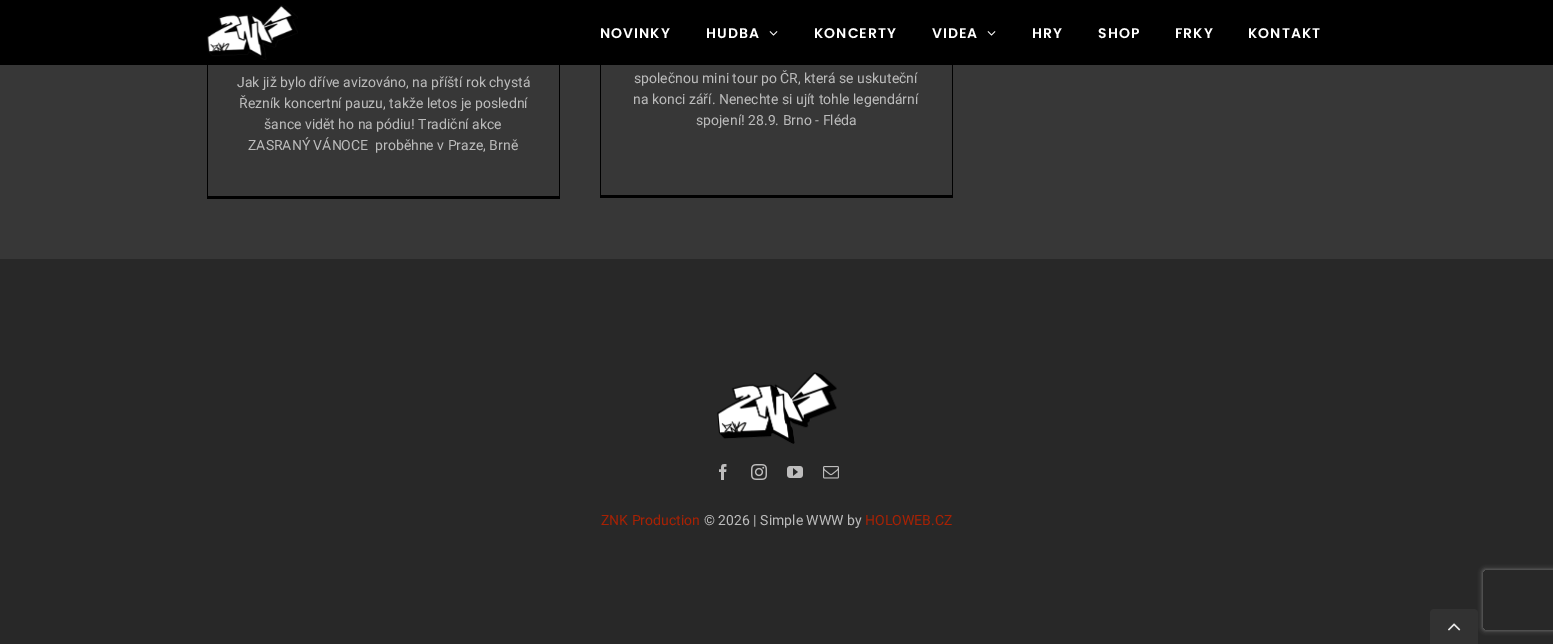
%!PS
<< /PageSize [1553 644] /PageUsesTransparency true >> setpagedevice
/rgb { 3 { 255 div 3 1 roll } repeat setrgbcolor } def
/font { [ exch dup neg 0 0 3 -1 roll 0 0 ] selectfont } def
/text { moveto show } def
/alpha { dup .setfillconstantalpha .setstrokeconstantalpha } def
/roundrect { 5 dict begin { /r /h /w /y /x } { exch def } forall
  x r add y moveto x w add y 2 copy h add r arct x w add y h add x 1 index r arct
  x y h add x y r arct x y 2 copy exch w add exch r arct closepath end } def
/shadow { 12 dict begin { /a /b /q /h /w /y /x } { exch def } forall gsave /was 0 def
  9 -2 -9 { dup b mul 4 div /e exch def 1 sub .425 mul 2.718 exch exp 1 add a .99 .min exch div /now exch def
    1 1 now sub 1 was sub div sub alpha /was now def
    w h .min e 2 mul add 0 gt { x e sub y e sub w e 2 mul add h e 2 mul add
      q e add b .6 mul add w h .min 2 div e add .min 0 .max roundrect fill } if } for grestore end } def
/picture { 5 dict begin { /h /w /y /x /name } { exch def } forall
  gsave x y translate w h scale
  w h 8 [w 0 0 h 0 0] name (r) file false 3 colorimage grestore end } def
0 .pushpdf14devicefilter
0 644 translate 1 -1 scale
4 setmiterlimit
55 55 55 rgb
0 0 1553 644 rectfill
0 0 0 rgb
0 0 1553 65 rectfill
(img_01.rgb) 207 5 91 55 picture
(img_02.rgb) 769 31 9 5 picture
(img_02.rgb) 987 31 9 5 picture
559 65 1 134 rectfill
207 196 353 3 rectfill
207 65 1 134 rectfill
952 65 1 133 rectfill
600 195 353 3 rectfill
600 65 1 133 rectfill
40 40 40 rgb
0 259 1553 385 rectfill
(img_03.rgb) 717 372 120 72 picture
(img_04.rgb) 719 464 8 16 picture
(img_05.rgb) 751 464 16 16 picture
(img_06.rgb) 787 466 16 12 picture
(img_07.rgb) 823 466 16 13 picture
gsave
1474 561 moveto 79 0 rlineto 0 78 rlineto -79 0 rlineto closepath 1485 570 moveto 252 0 rlineto 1 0 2 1 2 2 rcurveto 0 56 rlineto 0 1 -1 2 -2 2 rcurveto -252 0 rlineto -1 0 -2 -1 -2 -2 rcurveto 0 -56 rlineto 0 -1 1 -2 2 -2 rcurveto closepath eoclip newpath
128 128 128 rgb
1483 570 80 60 2 2.5 1 shadow
grestore
50 50 50 rgb
1434 609 moveto 40 0 rlineto 2 0 4 2 4 4 rcurveto 0 31 rlineto -48 0 rlineto 0 -31 rlineto 0 -2 2 -4 4 -4 rcurveto closepath fill
(img_08.rgb) 1448 623 13 8 picture
/Poppins-SemiBold 14 font
255 255 255 rgb
600 38 moveto 1 0 (NOVINKY) ashow
706 38 moveto 1 0 (HUDBA) ashow
814 38 moveto 1 0 (KONCERTY) ashow
932 38 moveto 1 0 (VIDEA) ashow
1032 38 moveto 1 0 (HRY) ashow
1098 38 moveto 1 0 (SHOP) ashow
1175 38 moveto 1 0 (FRKY) ashow
1248 38 moveto 1 0 (KONTAKT) ashow
/Roboto-Regular 14 font
188 188 188 rgb
(Jak již bylo dříve avizováno, na příští rok chystá) 237 87 text
(Řezník koncertní pauzu, takže letos je poslední) 239 108 text
(šance vidět ho na pódiu! Tradiční akce) 264 129 text
(ZASRANÝ VÁNOCE  proběhne v Praze, Brně) 248 150 text
(společnou mini tour po ČR, která se uskuteční) 634 83 text
(na konci září. Nenechte si ujít tohle legendární) 633 104 text
(spojení! 28.9. Brno - Fléda) 696 125 text
168 33 3 rgb
(ZNK Production) 601 525 text
188 188 188 rgb
(© 2026 | Simple WWW by) 704 525 text
168 33 3 rgb
(HOLOWEB.CZ) 865 525 text
.poppdf14devicefilter showpage
